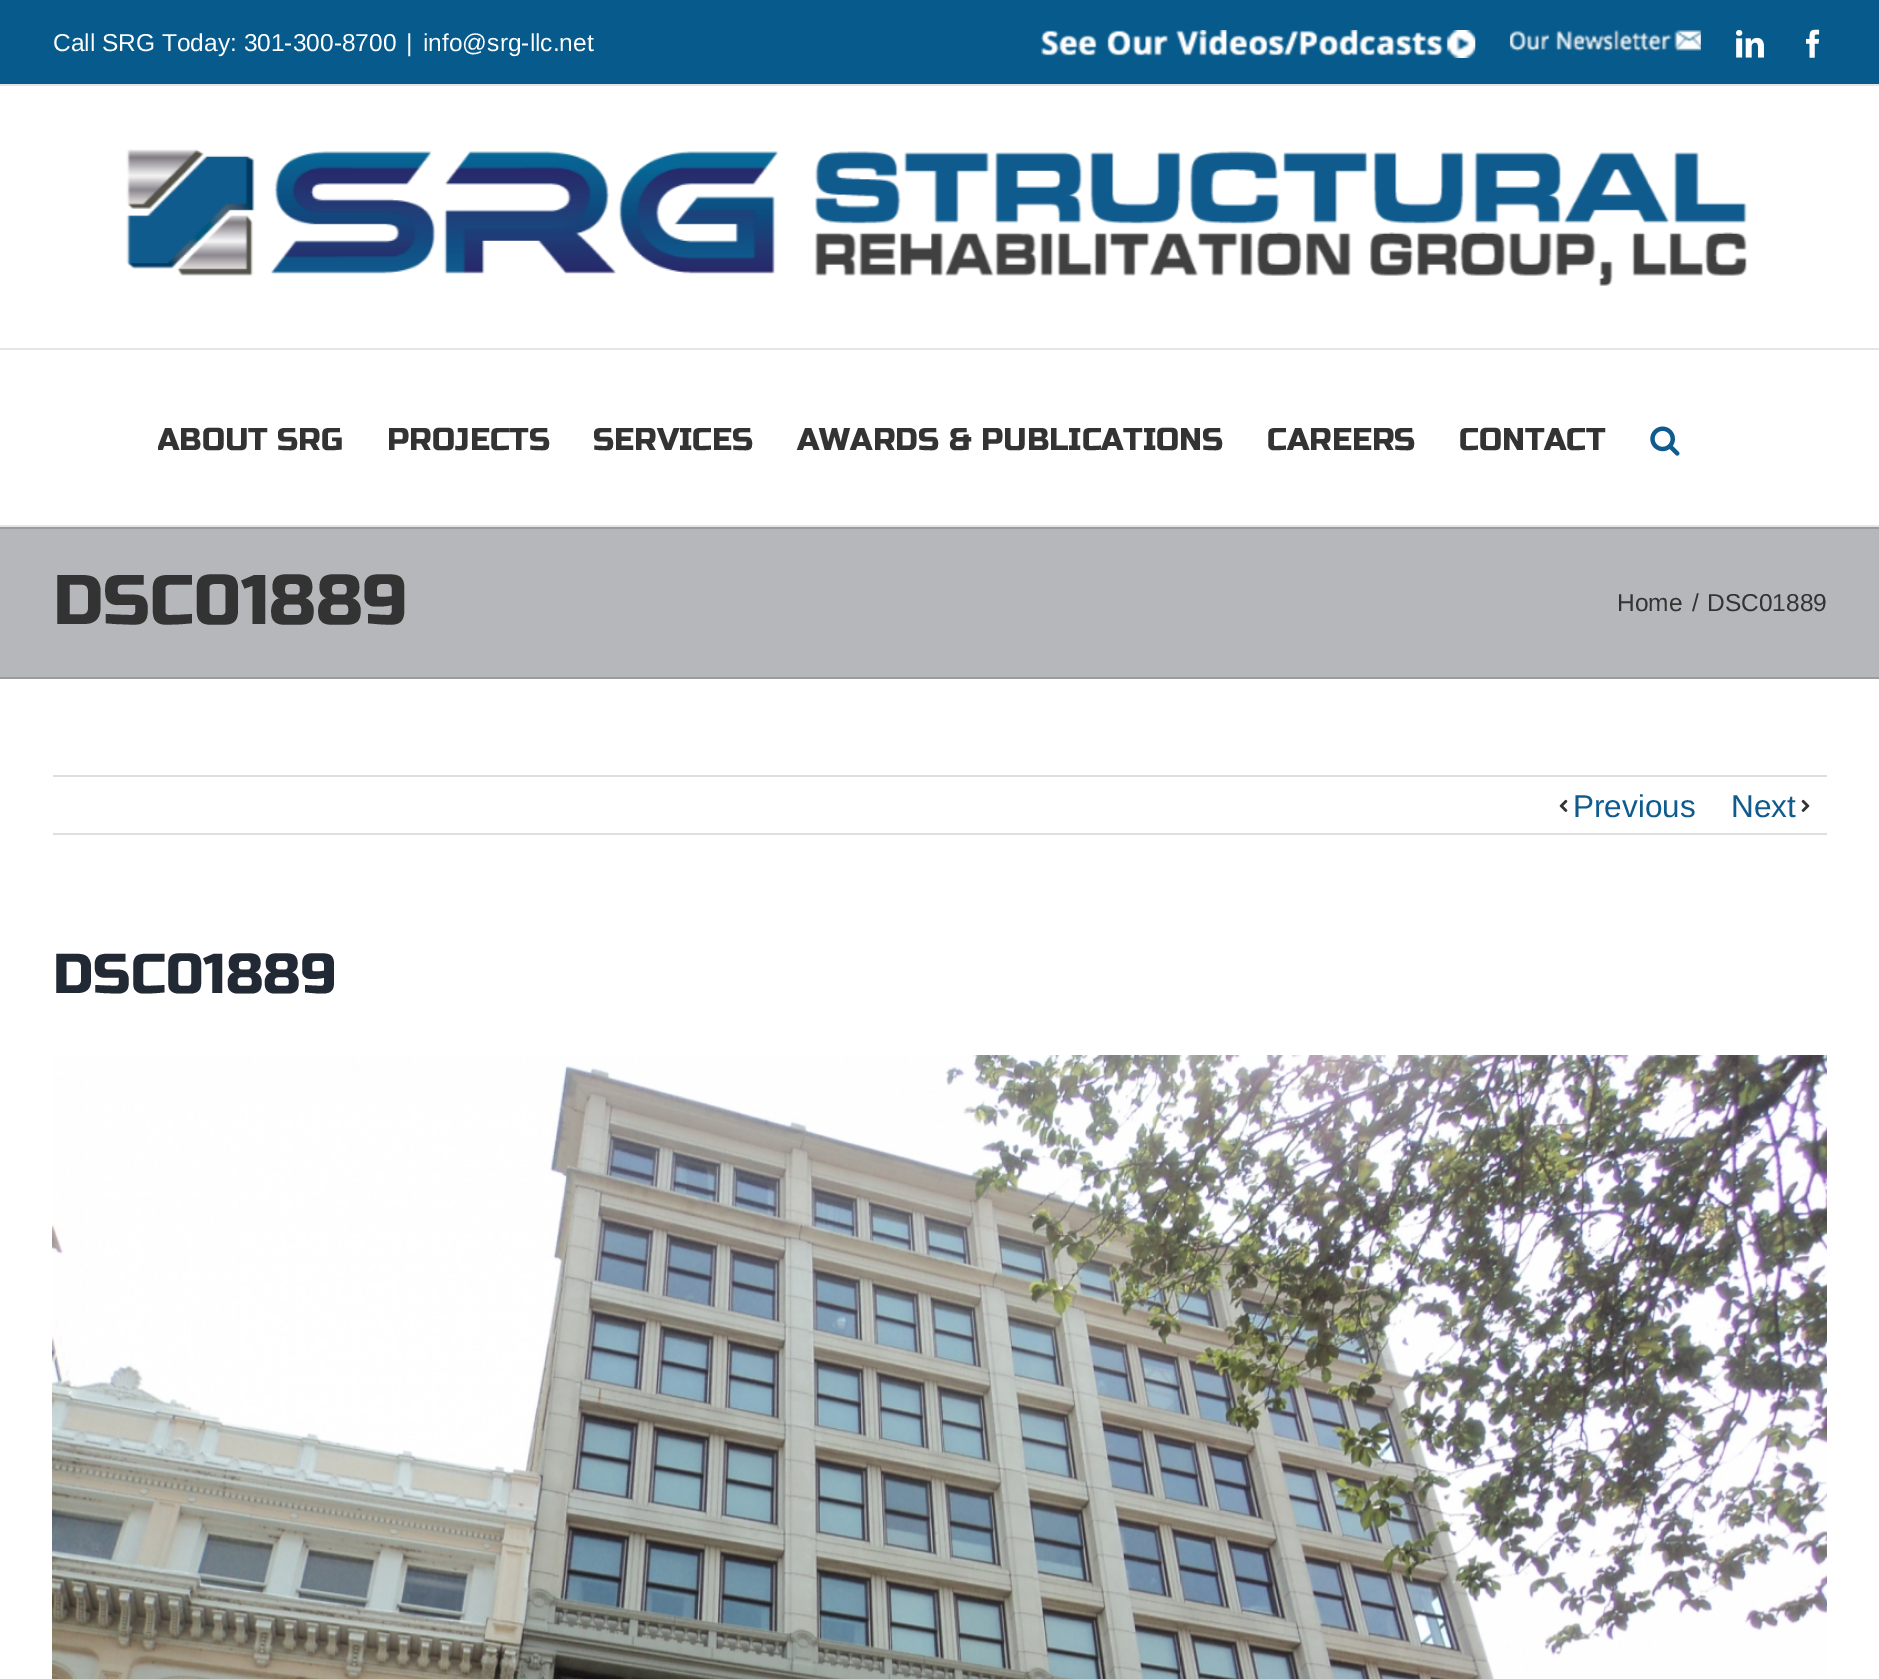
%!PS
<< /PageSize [1879 1679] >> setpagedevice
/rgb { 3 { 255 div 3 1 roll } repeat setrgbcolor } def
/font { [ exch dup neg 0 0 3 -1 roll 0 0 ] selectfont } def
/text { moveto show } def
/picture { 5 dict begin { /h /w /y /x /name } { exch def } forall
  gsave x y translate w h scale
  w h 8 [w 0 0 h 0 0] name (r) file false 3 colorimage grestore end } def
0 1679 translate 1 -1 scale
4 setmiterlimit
255 255 255 rgb
0 0 1879 1679 rectfill
6 90 140 rgb
0 0 1879 84 rectfill
229 229 229 rgb
0 84 1879 2 rectfill
(img_01.rgb) 1041 30 435 28 picture
(img_02.rgb) 1510 30 191 21 picture
(img_03.rgb) 1736 30 28 28 picture
(img_04.rgb) 1806 29 14 29 picture
0 348 1879 2 rectfill
(img_05.rgb) 126 149 1621 137 picture
0 525 1879 2 rectfill
(img_06.rgb) 1650 426 30 30 picture
182 183 186 rgb
0 529 1879 148 rectfill
155 156 159 rgb
0 527 1879 2 rectfill
0 677 1879 2 rectfill
224 222 222 rgb
53 775 1774 2 rectfill
53 833 1774 2 rectfill
(img_07.rgb) 1559 799 9 13 picture
(img_08.rgb) 1801 799 9 13 picture
(img_09.rgb) 52 1055 1775 624 picture
/LiberationSans-Regular 24.5 font
255 255 255 rgb
(Call SRG Today: 301-300-8700) 53 51 text
(|) 406 51 text
(info@srg-llc.net) 423 51 text
gsave
158 350 229 175 rectclip
/RussoOne-Regular 31.5 font
51 51 51 rgb
(ABOUT SRG) 157 450 text
grestore
/RussoOne-Regular 31.5 font
51 51 51 rgb
(PROJECTS) 387 450 text
(SERVICES) 593 450 text
(AWARDS & PUBLICATIONS) 797 450 text
(CAREERS) 1267 450 text
(CONTACT) 1459 450 text
/RussoOne-Regular 70 font
(DSC01889) 53 624 text
/LiberationSans-Regular 24.5 font
(Home) 1617 611 text
(/) 1692 611 text
(DSC01889) 1707 611 text
/LiberationSans-Regular 31.5 font
16 91 141 rgb
(Previous) 1573 817 text
(Next) 1731 817 text
/RussoOne-Regular 56 font
33 41 52 rgb
(DSC01889) 53 993 text
showpage
